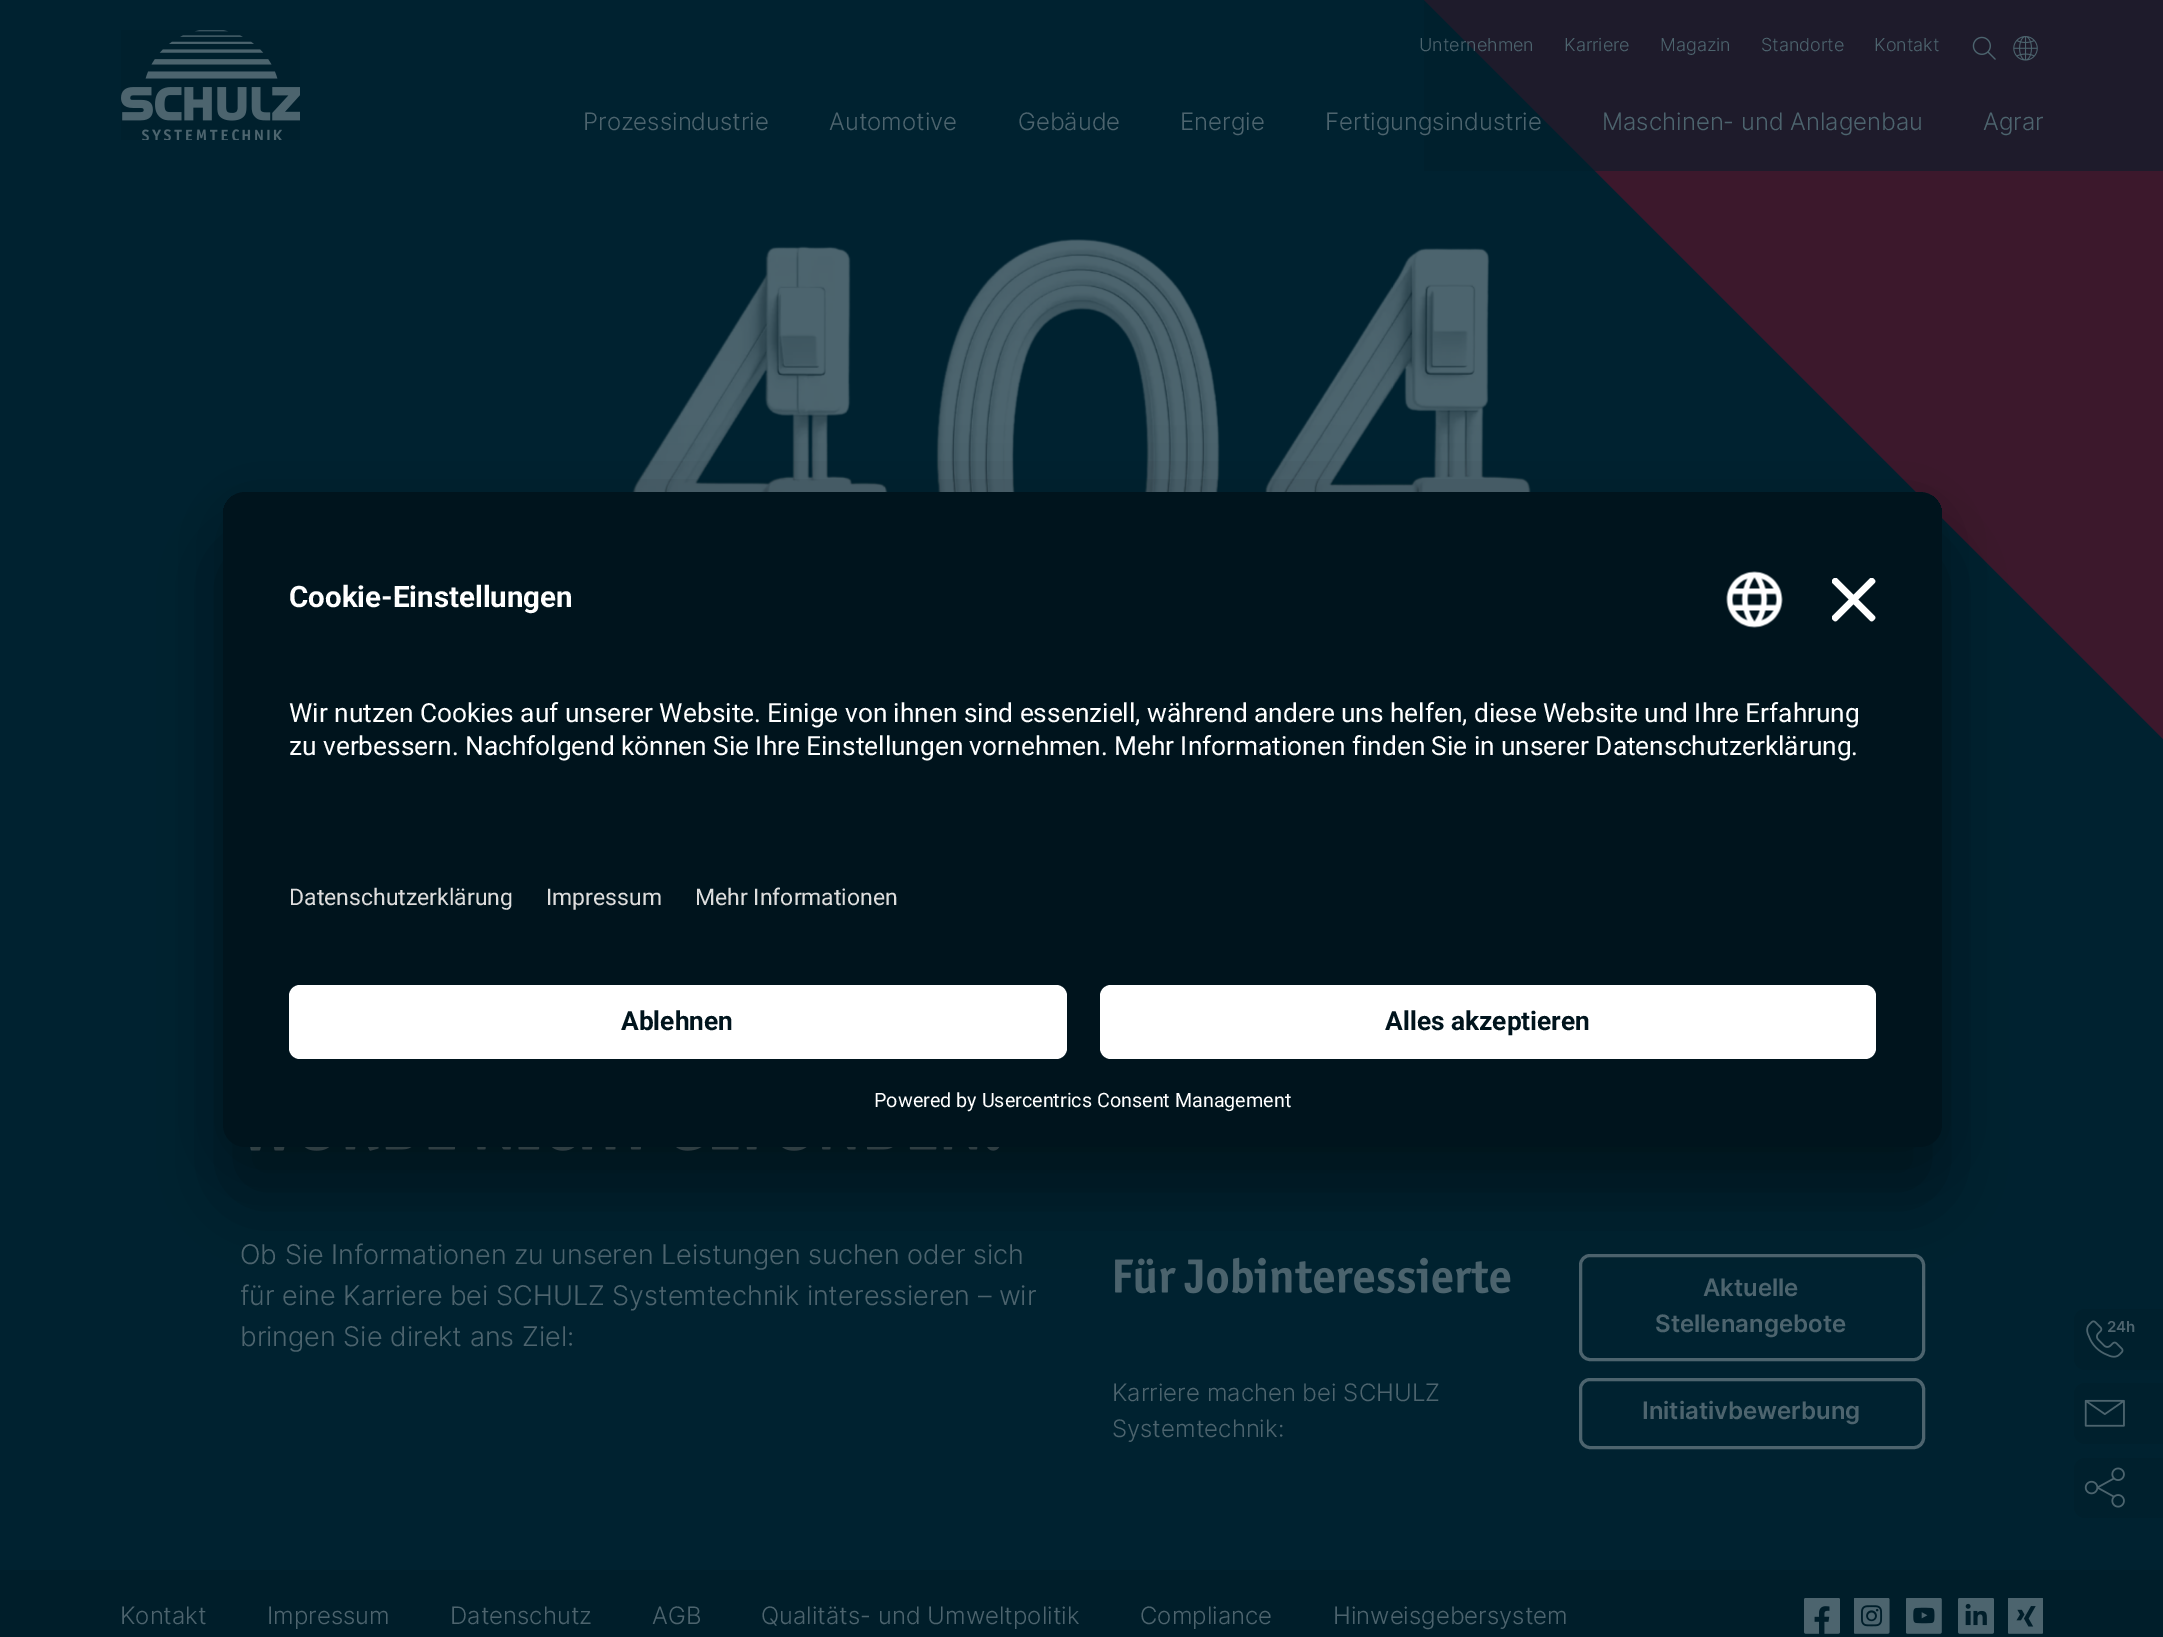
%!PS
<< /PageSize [2163 1637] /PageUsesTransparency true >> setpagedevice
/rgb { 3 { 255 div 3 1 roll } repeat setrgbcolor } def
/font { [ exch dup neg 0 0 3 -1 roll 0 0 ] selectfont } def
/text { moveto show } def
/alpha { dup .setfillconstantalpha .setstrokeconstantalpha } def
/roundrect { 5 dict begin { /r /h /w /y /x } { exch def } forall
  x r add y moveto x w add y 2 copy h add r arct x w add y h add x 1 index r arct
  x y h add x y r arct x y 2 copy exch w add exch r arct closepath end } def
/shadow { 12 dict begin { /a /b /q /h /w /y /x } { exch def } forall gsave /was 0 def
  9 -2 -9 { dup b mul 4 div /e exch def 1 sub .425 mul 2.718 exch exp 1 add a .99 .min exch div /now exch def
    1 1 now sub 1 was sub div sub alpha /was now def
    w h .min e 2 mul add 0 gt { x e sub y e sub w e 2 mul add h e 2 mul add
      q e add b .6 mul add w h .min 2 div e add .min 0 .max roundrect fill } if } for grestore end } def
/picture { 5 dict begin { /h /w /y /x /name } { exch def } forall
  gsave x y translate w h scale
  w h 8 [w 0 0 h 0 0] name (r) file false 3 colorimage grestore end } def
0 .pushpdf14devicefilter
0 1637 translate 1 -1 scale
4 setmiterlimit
0 34 48 rgb
0 0 2163 1637 rectfill
60 24 44 rgb
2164 -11 moveto -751 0 rlineto 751 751 rlineto closepath fill
0.5 alpha
0 30 43 rgb
1424 0 739 171 rectfill
1 alpha
(img_01.rgb) 121 30 179 110 picture
(img_02.rgb) 1972 36 24 24 picture
(img_03.rgb) 2013 36 25 25 picture
(img_06.rgb) 632 239 899 253 picture
(img_07.rgb) 250 1147 750 4 picture
(img_08.rgb) 1115 1257 396 37 picture
77 100 110 rgb
3 setlinewidth
1580.5 1255.5 343 104 9.5 roundrect stroke
0 0 0 rgb
223 547 1719 655 22 38.5 0.3 shadow
223 506 1719 655 22 36 0.22 shadow
0 20 29 rgb
223 492 1719 655 22 roundrect fill
gsave
223 492 1719 655 22 roundrect clip newpath
245 492 moveto 1675 0 rlineto 12 0 22 10 22 22 rcurveto 0 449 rlineto -1719 0 rlineto 0 -449 rlineto 0 -12 10 -22 22 -22 rcurveto closepath clip newpath
223 495 1719 468 rectfill
grestore
(img_04.rgb) 1726 571 57 57 picture
(img_05.rgb) 1832 578 44 44 picture
255 255 255 rgb
289 985 778 74 11 roundrect fill
1100 985 776 74 11 roundrect fill
77 100 110 rgb
1580.5 1379.5 343 68 9.5 roundrect stroke
0 30 42 rgb
0 1570 2163 67 rectfill
0 32 45 rgb
2085 1309 moveto 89 0 rlineto 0 61 rlineto -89 0 rlineto -6 0 -11 -5 -11 -11 rcurveto 0 -39 rlineto 0 -6 5 -11 11 -11 rcurveto closepath fill
(img_09.rgb) 2086 1320 38 38 picture
2085 1383 moveto 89 0 rlineto 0 61 rlineto -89 0 rlineto -6 0 -11 -5 -11 -11 rcurveto 0 -39 rlineto 0 -6 5 -11 11 -11 rcurveto closepath fill
(img_10.rgb) 2084 1399 41 28 picture
2085 1458 moveto 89 0 rlineto 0 60 rlineto -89 0 rlineto -6 0 -11 -5 -11 -11 rcurveto 0 -38 rlineto 0 -6 5 -11 11 -11 rcurveto closepath fill
(img_11.rgb) 2084 1467 41 41 picture
(img_12.rgb) 1804 1598 36 36 picture
(img_13.rgb) 1854 1598 36 36 picture
(img_14.rgb) 1906 1598 36 36 picture
(img_15.rgb) 1958 1598 36 36 picture
(img_16.rgb) 2008 1598 35 36 picture
/Inter-Light 18 font
77 100 110 rgb
(Unternehmen) 1419 51 text
(Karriere) 1564 51 text
(Magazin) 1660 51 text
(Standorte) 1761 51 text
(Kontakt) 1874 51 text
/Inter-Light 24 font
(Prozessindustrie) 583 130 text
(Automotive) 829 130 text
(Gebäude) 1018 130 text
(Energie) 1180 130 text
(Fertigungsindustrie) 1325 130 text
(Maschinen- und Anlagenbau) 1602 130 text
(Agrar) 1983 130 text
/Roboto-Bold 29.5 font
255 255 255 rgb
(Cookie-Einstellungen) 289 607 text
/Roboto-Regular 26.3 font
289 722 moveto -0.1 0 32 (Wir nutzen Cookies auf unserer Website. Einige von ihnen sind essenziell, während andere uns helfen, diese Website und Ihre Erfahrung) widthshow
289 755 moveto -0.25 0 32 (zu verbessern. Nachfolgend können Sie Ihre Einstellungen vornehmen. Mehr Informationen finden Sie in unserer Datenschutzerklärung.) widthshow
/Roboto-Regular 23 font
221 221 221 rgb
(Datenschutzerklärung) 289 905 text
(Impressum) 546 905 text
(Mehr Informationen) 695 905 text
/Roboto-Bold 26.3 font
0 20 29 rgb
(Ablehnen) 621 1030 text
(Alles akzeptieren) 1385 1030 text
/Roboto-Regular 19.75 font
255 255 255 rgb
(Powered by Usercentrics Consent Management) 874 1107 text
/Inter-Light 27.05 font
77 100 110 rgb
(Ob Sie Informationen zu unseren Leistungen suchen oder sich) 240 1264 text
(für eine Karriere bei SCHULZ Systemtechnik interessieren – wir) 240 1305 text
(bringen Sie direkt ans Ziel:) 240 1346 text
/Inter-Light 24 font
(Karriere machen bei SCHULZ) 1112 1401 text
(Systemtechnik:) 1112 1437 text
/Inter-SemiBold 24 font
(Aktuelle) 1703 1296 text
(Stellenangebote) 1655 1332 text
(Initiativbewerbung) 1642 1419 text
/Inter-SemiBold 15 font
(24h) 2107 1332 text
/Inter-Light 24 font
(Kontakt) 120 1624 text
(Impressum) 267 1624 text
(Datenschutz) 450 1624 text
(AGB) 652 1624 text
(Qualitäts- und Umweltpolitik) 761 1624 text
(Compliance) 1140 1624 text
(Hinweisgebersystem) 1333 1624 text
.poppdf14devicefilter showpage
